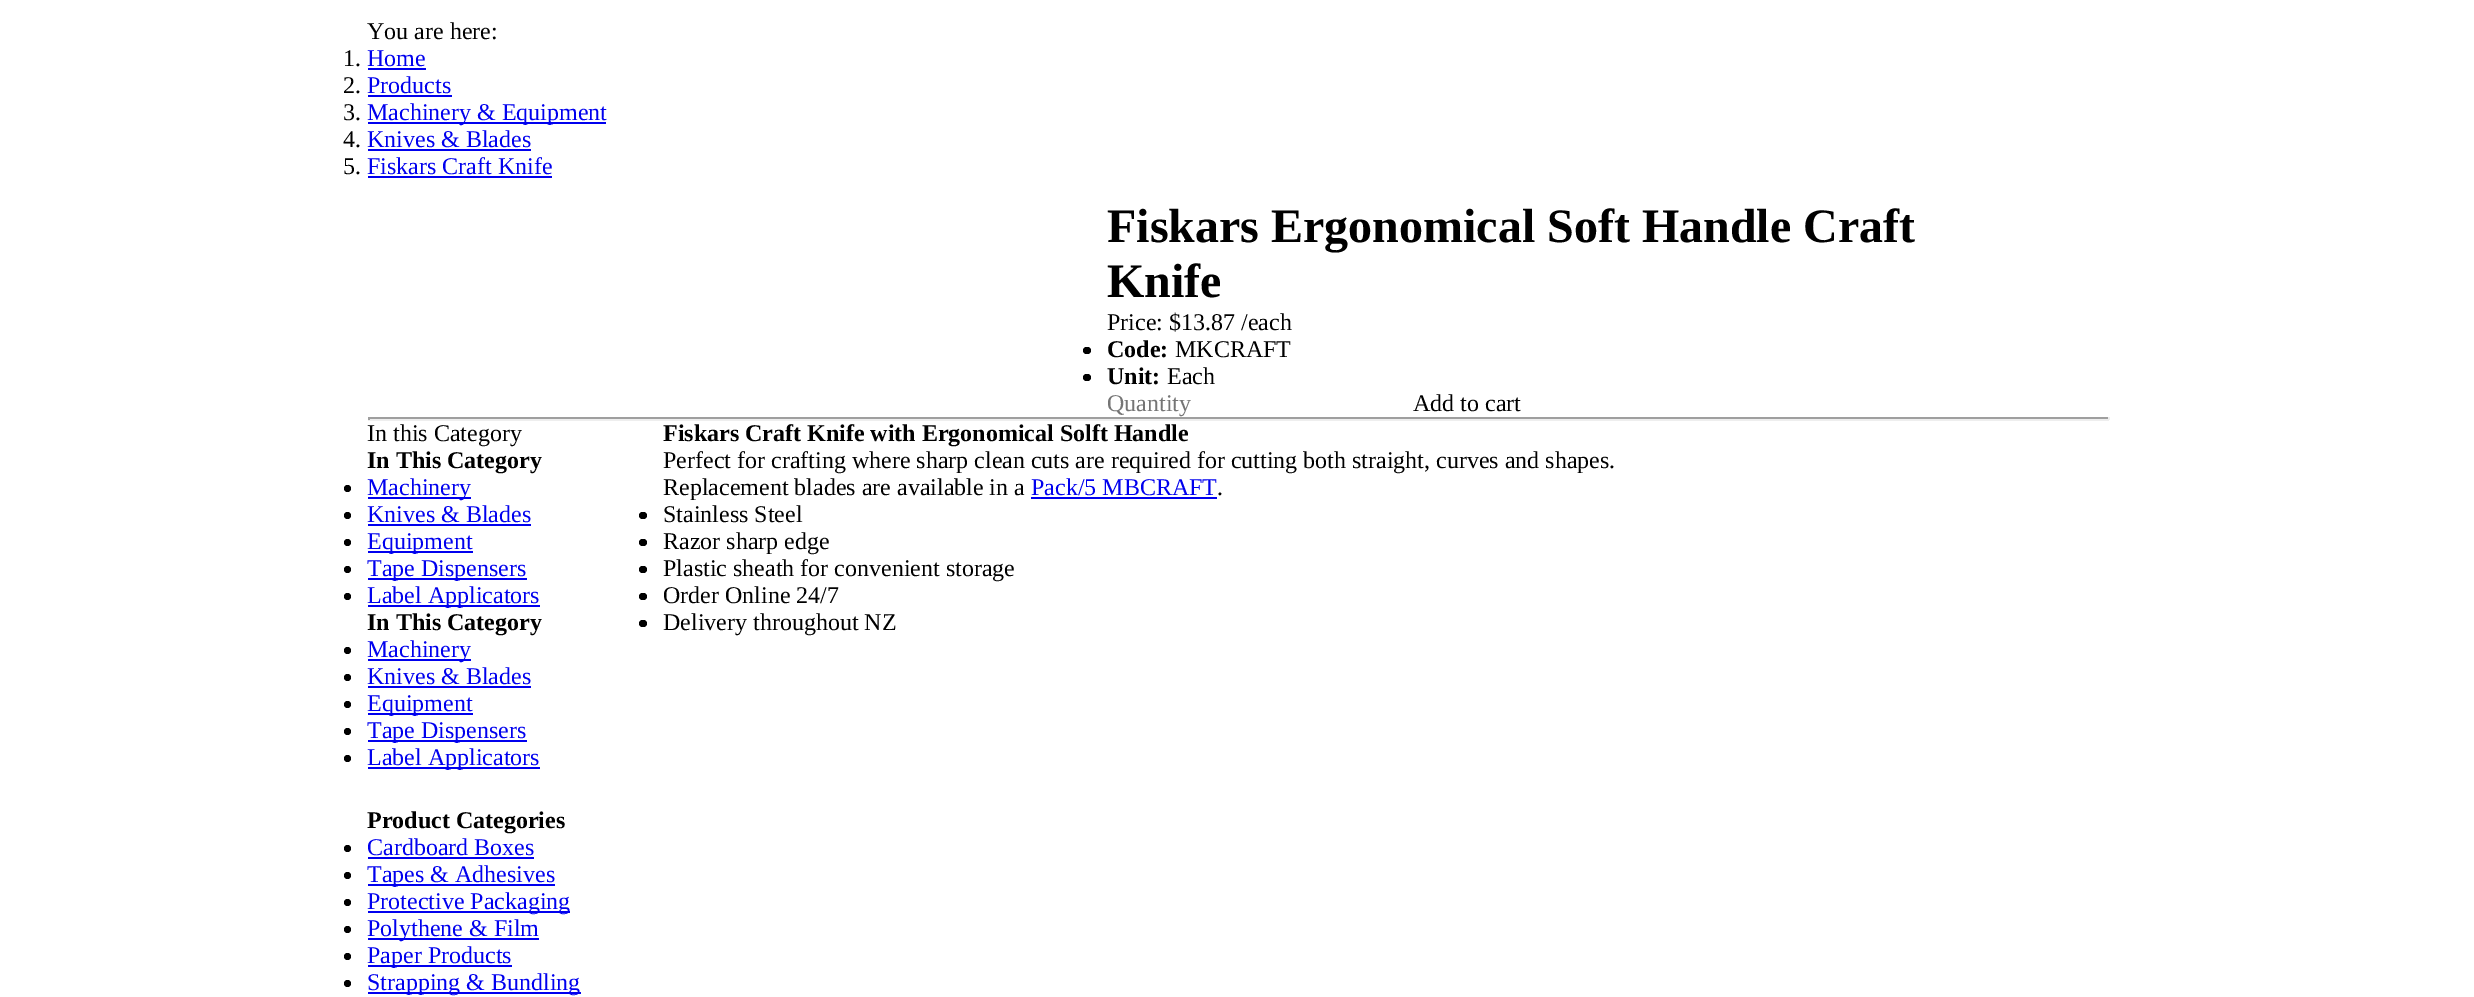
%!PS
<< /PageSize [2474 997] >> setpagedevice
/rgb { 3 { 255 div 3 1 roll } repeat setrgbcolor } def
/font { [ exch dup neg 0 0 3 -1 roll 0 0 ] selectfont } def
/text { moveto show } def
/circle { newpath 0 360 arc closepath } def
/roundrect { 5 dict begin { /r /h /w /y /x } { exch def } forall
  x r add y moveto x w add y 2 copy h add r arct x w add y h add x 1 index r arct
  x y h add x y r arct x y 2 copy exch w add exch r arct closepath end } def
0 997 translate 1 -1 scale
4 setmiterlimit
255 255 255 rgb
0 0 2474 997 rectfill
0 0 238 rgb
368 68 58 2 rectfill
368 95 84 2 rectfill
368 122 238 2 rectfill
368 149 163 2 rectfill
368 176 184 2 rectfill
0 0 0 rgb
1083 347 8 7 3.5 roundrect fill
1083 374 8 7 3.5 roundrect fill
159 159 159 rgb
368 417 1741 2 rectfill
238 238 238 rgb
2108 417 2 3 rectfill
368 419 1741 2 rectfill
159 159 159 rgb
368 417 2 3 rectfill
0 0 0 rgb
347.5 488.5 3.5 circle fill
0 0 238 rgb
368 497 103 2 rectfill
0 0 0 rgb
347.5 515.5 3.5 circle fill
0 0 238 rgb
368 524 163 2 rectfill
0 0 0 rgb
347.5 542.5 3.5 circle fill
0 0 238 rgb
368 551 105 2 rectfill
0 0 0 rgb
347.5 569.5 3.5 circle fill
0 0 238 rgb
368 578 159 2 rectfill
0 0 0 rgb
347.5 596.5 3.5 circle fill
0 0 238 rgb
368 605 172 2 rectfill
0 0 0 rgb
347.5 650.5 3.5 circle fill
0 0 238 rgb
368 659 103 2 rectfill
0 0 0 rgb
347.5 677.5 3.5 circle fill
0 0 238 rgb
368 686 163 2 rectfill
0 0 0 rgb
347.5 704.5 3.5 circle fill
0 0 238 rgb
368 713 105 2 rectfill
0 0 0 rgb
347.5 731.5 3.5 circle fill
0 0 238 rgb
368 740 159 2 rectfill
0 0 0 rgb
347.5 758.5 3.5 circle fill
0 0 238 rgb
368 767 172 2 rectfill
1031 497 186 2 rectfill
0 0 0 rgb
639 512 8 7 3.5 roundrect fill
639 539 8 7 3.5 roundrect fill
639 566 8 7 3.5 roundrect fill
639 593 8 7 3.5 roundrect fill
639 620 8 7 3.5 roundrect fill
347.5 848.5 3.5 circle fill
0 0 238 rgb
368 857 166 2 rectfill
0 0 0 rgb
347.5 875.5 3.5 circle fill
0 0 238 rgb
368 884 187 2 rectfill
0 0 0 rgb
347.5 902.5 3.5 circle fill
0 0 238 rgb
368 911 202 2 rectfill
0 0 0 rgb
347.5 929.5 3.5 circle fill
0 0 238 rgb
368 938 171 2 rectfill
0 0 0 rgb
347.5 956.5 3.5 circle fill
0 0 238 rgb
368 965 144 2 rectfill
0 0 0 rgb
347.5 983.5 3.5 circle fill
0 0 238 rgb
368 992 213 2 rectfill
/LiberationSerif-Regular 24 font
0 0 0 rgb
(You are here:) 367 39 text
(1.) 343 66 text
0 0 238 rgb
(Home) 367 66 text
0 0 0 rgb
(2.) 343 93 text
0 0 238 rgb
(Products) 367 93 text
0 0 0 rgb
(3.) 343 120 text
0 0 238 rgb
(Machinery & Equipment) 367 120 text
0 0 0 rgb
(4.) 343 147 text
0 0 238 rgb
(Knives & Blades) 367 147 text
0 0 0 rgb
(5.) 343 174 text
0 0 238 rgb
(Fiskars Craft Knife) 367 174 text
/LiberationSerif-Bold 48 font
0 0 0 rgb
(Fiskars Ergonomical Soft Handle Craft) 1107 242 text
(Knife) 1107 297 text
/LiberationSerif-Regular 24 font
(Price: $13.87 /each) 1107 330 text
/LiberationSerif-Bold 24 font
(Code:) 1107 357 text
/LiberationSerif-Regular 24 font
(MKCRAFT) 1175 357 text
/LiberationSerif-Bold 24 font
(Unit:) 1107 384 text
/LiberationSerif-Regular 24 font
(Each) 1167 384 text
117 117 117 rgb
(Quantity) 1107 411 text
0 0 0 rgb
(Add to cart) 1413 411 text
(In this Category) 367 441 text
/LiberationSerif-Bold 24 font
(In This Category) 367 468 text
/LiberationSerif-Regular 24 font
0 0 238 rgb
(Machinery) 367 495 text
(Knives & Blades) 367 522 text
(Equipment) 367 549 text
(Tape Dispensers) 367 576 text
(Label Applicators) 367 603 text
/LiberationSerif-Bold 24 font
0 0 0 rgb
(In This Category) 367 630 text
/LiberationSerif-Regular 24 font
0 0 238 rgb
(Machinery) 367 657 text
(Knives & Blades) 367 684 text
(Equipment) 367 711 text
(Tape Dispensers) 367 738 text
(Label Applicators) 367 765 text
/LiberationSerif-Bold 24 font
0 0 0 rgb
(Fiskars Craft Knife with Ergonomical Solft Handle) 663 441 text
/LiberationSerif-Regular 24 font
(Perfect for crafting where sharp clean cuts are required for cutting both straight, curves and shapes.) 663 468 text
(Replacement blades are available in a) 663 495 text
0 0 238 rgb
(Pack/5 MBCRAFT) 1031 495 text
0 0 0 rgb
(.) 1217 495 text
(Stainless Steel) 663 522 text
(Razor sharp edge) 663 549 text
(Plastic sheath for convenient storage) 663 576 text
(Order Online 24/7) 663 603 text
(Delivery throughout NZ) 663 630 text
/LiberationSerif-Bold 24 font
(Product Categories) 367 828 text
/LiberationSerif-Regular 24 font
0 0 238 rgb
(Cardboard Boxes) 367 855 text
(Tapes & Adhesives) 367 882 text
(Protective Packaging) 367 909 text
(Polythene & Film) 367 936 text
(Paper Products) 367 963 text
(Strapping & Bundling) 367 990 text
showpage
